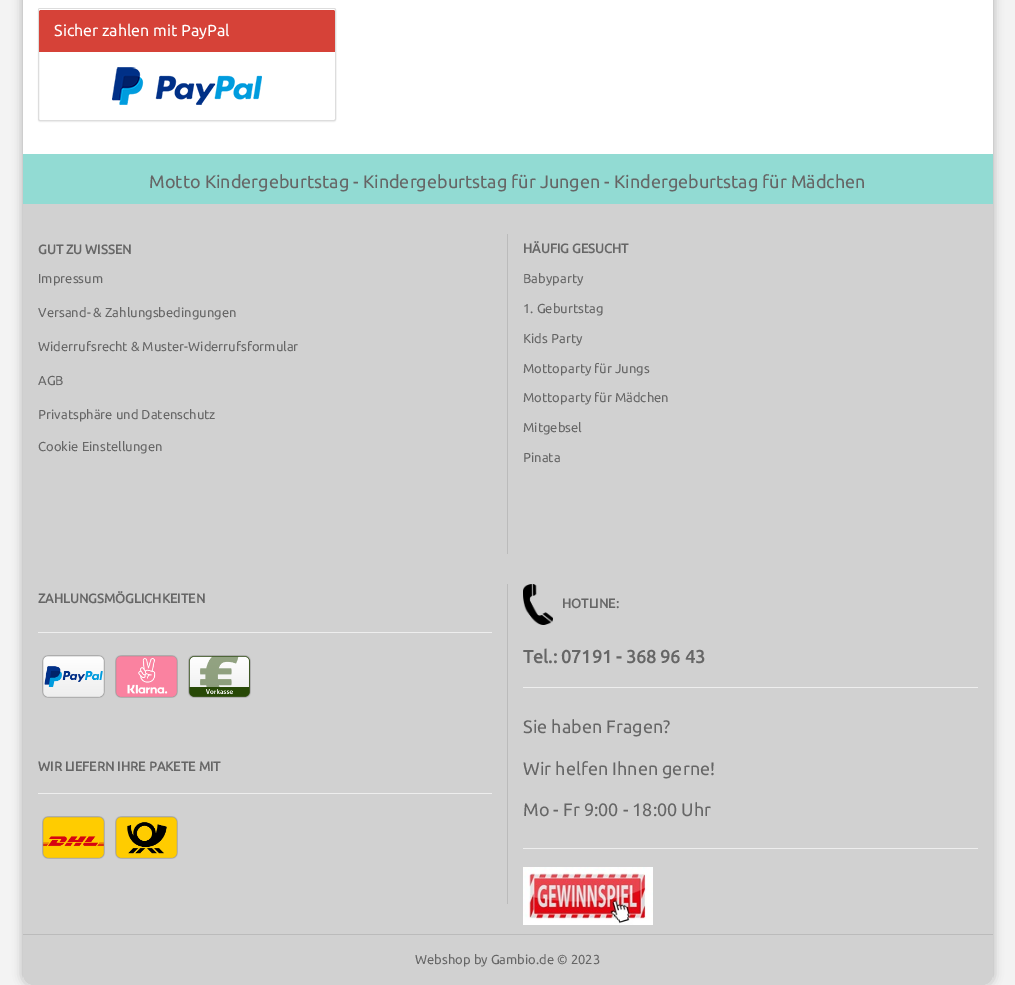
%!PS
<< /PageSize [1015 985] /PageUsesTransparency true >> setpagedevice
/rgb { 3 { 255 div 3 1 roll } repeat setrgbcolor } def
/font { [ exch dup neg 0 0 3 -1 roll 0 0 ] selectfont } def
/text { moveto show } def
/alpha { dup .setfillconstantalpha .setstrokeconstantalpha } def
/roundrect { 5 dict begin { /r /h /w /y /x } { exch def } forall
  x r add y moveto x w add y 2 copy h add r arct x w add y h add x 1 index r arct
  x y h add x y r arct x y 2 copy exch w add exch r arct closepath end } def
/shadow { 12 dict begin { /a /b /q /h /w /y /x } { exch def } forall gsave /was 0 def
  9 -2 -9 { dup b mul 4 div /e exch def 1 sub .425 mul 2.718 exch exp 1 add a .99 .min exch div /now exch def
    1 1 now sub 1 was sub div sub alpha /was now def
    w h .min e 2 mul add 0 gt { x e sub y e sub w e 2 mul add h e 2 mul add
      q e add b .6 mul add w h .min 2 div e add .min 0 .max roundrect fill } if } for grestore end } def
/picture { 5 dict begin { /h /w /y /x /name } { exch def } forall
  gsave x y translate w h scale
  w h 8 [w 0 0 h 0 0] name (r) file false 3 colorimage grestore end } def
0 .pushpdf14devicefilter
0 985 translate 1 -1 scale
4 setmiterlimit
243 243 243 rgb
0 0 1015 985 rectfill
0 0 0 rgb
23 -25 970 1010 10 5 0.3 shadow
255 255 255 rgb
23 -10 970 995 10 roundrect fill
0 0 0 rgb
38 9 298 113 2 0.5 0.05 shadow
255 255 255 rgb
38.5 8.5 297 112 1.5 roundrect gsave fill grestore
221 221 221 rgb
stroke
214 66 56 rgb
40 9 moveto 294 0 rlineto 0.5 0 1 0.5 1 1 rcurveto 0 42 rlineto -296 0 rlineto 0 -42 rlineto 0 -0.5 0.5 -1 1 -1 rcurveto closepath fill
255 255 255 rgb
40 10 moveto 294 0 rlineto 1 0 1 0 1 1 rcurveto 0 -1 0 -2 -1 -2 rcurveto -294 0 rlineto -1 0 rlineto 0 2 rlineto closepath fill
(img_01.rgb) 112 67 150 38 picture
209 209 209 rgb
23 154 moveto 970 0 rlineto 0 821 rlineto 0 5.5 -4.5 10 -10 10 rcurveto -950 0 rlineto -5.5 0 -10 -4.5 -10 -10 rcurveto closepath fill
146 219 211 rgb
23 154 970 50 rectfill
187 187 187 rgb
23 934 970 1 rectfill
507 234 1 320 rectfill
507 584 1 320 rectfill
238 238 238 rgb
38 632 454 1 rectfill
(img_02.rgb) 42 655 63 43 picture
(img_03.rgb) 115 655 63 43 picture
(img_04.rgb) 188 655 63 43 picture
38 793 454 1 rectfill
(img_05.rgb) 42 816 63 43 picture
(img_06.rgb) 115 816 63 43 picture
(img_07.rgb) 523 584 30 41 picture
523 687 455 1 rectfill
523 848 455 1 rectfill
(img_08.rgb) 523 867 130 58 picture
/Ubuntu-Regular 16 font
255 255 255 rgb
(Sicher zahlen mit PayPal) 54 36 text
/Ubuntu-Regular 18 font
102 102 102 rgb
(Motto Kindergeburtstag - Kindergeburtstag für Jungen - Kindergeburtstag für Mädchen) 149 188 text
/Ubuntu-Bold 13 font
(GUT ZU WISSEN) 38 254 text
/Ubuntu-Regular 13 font
(Impressum) 38 283 text
(Versand- & Zahlungsbedingungen) 38 317 text
(Widerrufsrecht & Muster-Widerrufsformular) 38 351 text
(AGB) 38 385 text
(Privatsphäre und Datenschutz) 38 419 text
(Cookie Einstellungen) 38 451 text
/Ubuntu-Bold 13 font
(HÄUFIG GESUCHT) 523 253 text
/Ubuntu-Regular 13 font
(Babyparty) 523 283 text
(1. Geburtstag) 523 313 text
(Kids Party) 523 343 text
(Mottoparty für Jungs) 523 373 text
(Mottoparty für Mädchen) 523 402 text
(Mitgebsel) 523 432 text
(Pinata) 523 462 text
/Ubuntu-Bold 13 font
(ZAHLUNGSMÖGLICHKEITEN) 38 603 text
(WIR LIEFERN IHRE PAKETE MIT) 38 771 text
(HOTLINE:) 562 608 text
/Ubuntu-Bold 18 font
(Tel.: 07191 - 368 96 43) 523 663 text
/Ubuntu-Regular 18 font
(Sie haben Fragen?) 523 733 text
(Wir helfen Ihnen gerne!) 523 775 text
(Mo - Fr 9:00 - 18:00 Uhr) 523 816 text
/Ubuntu-Regular 13 font
(Webshop by Gambio.de © 2023) 415 964 text
.poppdf14devicefilter showpage
